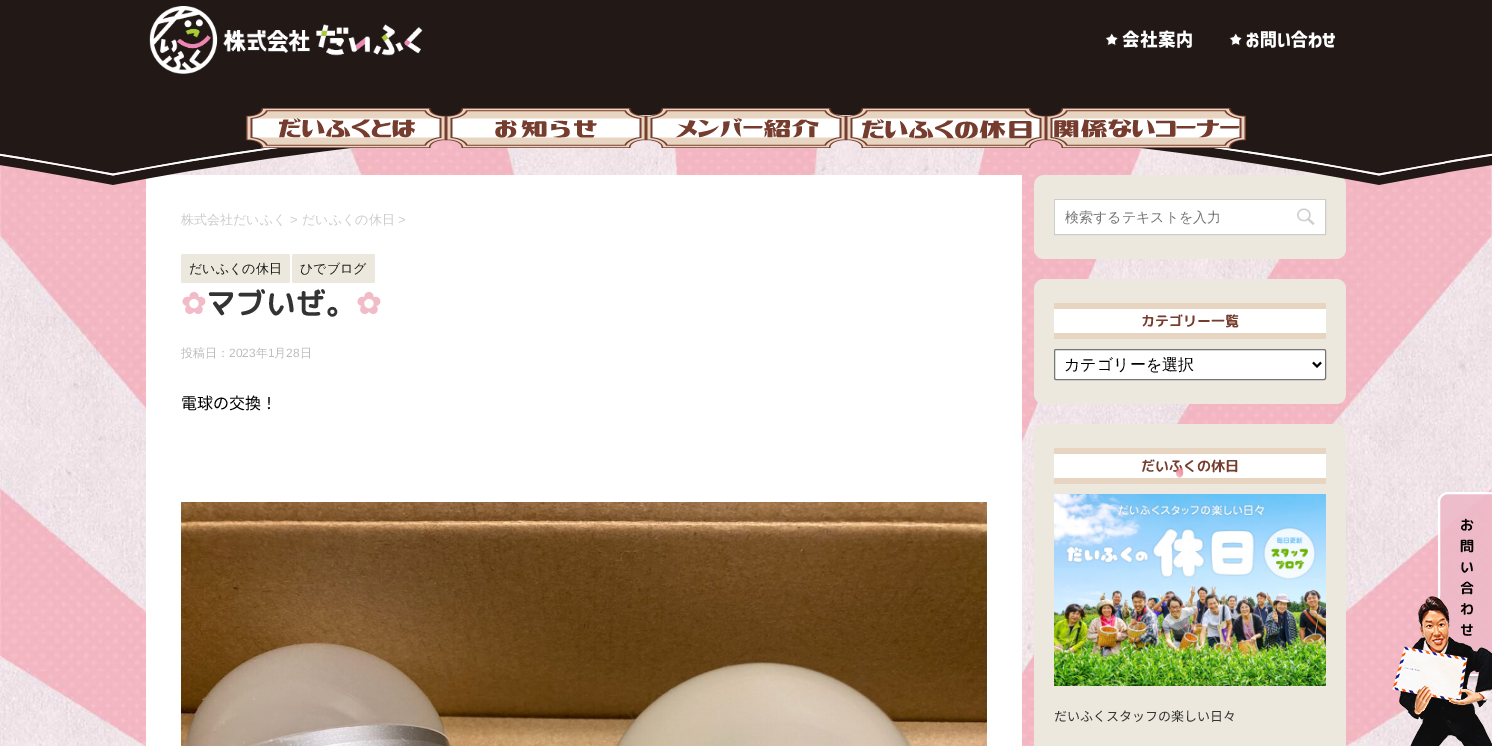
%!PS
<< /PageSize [1492 746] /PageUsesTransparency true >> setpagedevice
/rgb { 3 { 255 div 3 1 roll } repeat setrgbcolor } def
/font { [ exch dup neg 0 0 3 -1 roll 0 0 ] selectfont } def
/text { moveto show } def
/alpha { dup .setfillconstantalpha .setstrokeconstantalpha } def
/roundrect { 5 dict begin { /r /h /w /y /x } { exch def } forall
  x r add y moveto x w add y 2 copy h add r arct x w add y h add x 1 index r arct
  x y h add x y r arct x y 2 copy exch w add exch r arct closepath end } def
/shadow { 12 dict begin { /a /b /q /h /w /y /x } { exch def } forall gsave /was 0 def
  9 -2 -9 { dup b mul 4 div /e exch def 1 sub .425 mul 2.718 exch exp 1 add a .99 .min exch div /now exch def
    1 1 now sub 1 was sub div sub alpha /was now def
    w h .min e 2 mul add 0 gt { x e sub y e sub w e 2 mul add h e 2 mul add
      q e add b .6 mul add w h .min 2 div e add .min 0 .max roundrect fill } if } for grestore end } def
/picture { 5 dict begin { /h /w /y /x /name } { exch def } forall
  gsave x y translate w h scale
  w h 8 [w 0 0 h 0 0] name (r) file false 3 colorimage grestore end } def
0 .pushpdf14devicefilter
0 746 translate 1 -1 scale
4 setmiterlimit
255 255 255 rgb
0 0 1492 746 rectfill
(img_01.rgb) 0 114 1492 632 picture
34 24 21 rgb
0 0 1492 100 rectfill
(img_02.rgb) 149 6 274 68 picture
(img_03.rgb) 1105 30 87 18 picture
(img_04.rgb) 1229 30 106 18 picture
255 255 255 rgb
146 175 876 571 rectfill
236 232 221 rgb
1034 175 312 84 10 roundrect fill
(img_05.rgb) 0 100 1492 85 picture
(img_06.rgb) 246 108 200 40 picture
(img_07.rgb) 446 108 200 40 picture
(img_08.rgb) 646 108 200 40 picture
(img_09.rgb) 846 108 200 40 picture
(img_10.rgb) 1046 108 200 40 picture
181 254 109 29 2 roundrect fill
292 254 83 29 2 roundrect fill
(img_11.rgb) 181 502 806 244 picture
204 204 204 rgb
1054.5 199.5 271 35 rectstroke
255 255 255 rgb
1055 200 270 34 rectfill
(img_12.rgb) 1297 208 18 17 picture
236 232 221 rgb
1034 279 312 125 10 roundrect fill
255 255 255 rgb
1054 309 272 24 rectfill
232 213 193 rgb
1054 303 272 6 rectfill
1054 333 272 6 rectfill
255 255 255 rgb
1054.5 349.5 271 30 1.5 roundrect gsave fill grestore
118 118 118 rgb
stroke
0 0 0 rgb
2 setlinewidth
1313 362.5 moveto 4 4 rlineto 4 -4 rlineto stroke
236 232 221 rgb
1034 424 312 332 10 roundrect fill
255 255 255 rgb
1054 454 272 24 rectfill
232 213 193 rgb
1054 448 272 6 rectfill
1054 478 272 6 rectfill
(img_13.rgb) 1054 494 272 192 picture
gsave
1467 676 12 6 rectclip
0 0 0 rgb
1441 495 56 184 10 2.5 0.23 shadow
grestore
0.9 alpha
238 185 200 rgb
1448 493 moveto 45 0 rlineto 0 182 rlineto -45 0 rlineto -5 0 -9 -4 -9 -9 rcurveto 0 -164 rlineto 0 -5 4 -9 9 -9 rcurveto closepath fill
1 alpha
255 255 255 rgb
1448 493 moveto 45 0 rlineto 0 182 rlineto -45 0 rlineto -5 0 -9 -4 -9 -9 rcurveto 0 -164 rlineto 0 -5 4 -9 9 -9 rcurveto closepath stroke
(img_15.rgb) 1392 596 100 150 picture
/WenQuanYiZenHei-Medium 13 font
204 204 204 rgb
(株式会社だいふく) 181 224 text
/LiberationSans-Regular 13 font
(>) 290 224 text
/WenQuanYiZenHei-Medium 13 font
(だいふくの休日) 302 224 text
/LiberationSans-Regular 13 font
(>) 398 224 text
/WenQuanYiZenHei-Medium 13 font
26 26 26 rgb
(だいふくの休日) 189 273 text
(ひでブログ) 300 273 text
/DejaVuSans-Bold 30 font
242 187 200 rgb
(✿) 181 314 text
/RoundedMplus1cBold-Bold 30 font
51 51 51 rgb
(マブいぜ。) 206 314 text
/DejaVuSans-Bold 30 font
242 187 200 rgb
(✿) 356 314 text
/WenQuanYiZenHei-Medium 12 font
189 189 189 rgb
(投稿日：) 181 357 text
/LiberationSans-Regular 12 font
(2023) 229 357 text
/WenQuanYiZenHei-Medium 12 font
(年) 256 357 text
/LiberationSans-Regular 12 font
(1) 268 357 text
/WenQuanYiZenHei-Medium 12 font
(月) 274 357 text
/LiberationSans-Regular 12 font
(28) 286 357 text
/WenQuanYiZenHei-Medium 12 font
(日) 300 357 text
/NotoSansJP-Thin 16 font
0 0 0 rgb
(電球の交換！) 181 409 text
/WenQuanYiZenHei-Medium 14 font
117 117 117 rgb
(検索するテキストを入力) 1065 222 text
/RoundedMplus1cBold-Bold 14 font
118 60 46 rgb
gsave 1141 326 translate 0.1 rotate 0 0 moveto (カテゴリー一覧) show grestore
/WenQuanYiZenHei-Medium 16 font
0 0 0 rgb
(カテゴリーを選択) 1064 370 text
/RoundedMplus1cBold-Bold 14 font
118 60 46 rgb
gsave 1141 471 translate 0.1 rotate 0 0 moveto (だいふくの休日) show grestore
/NotoSansJP-Thin 13 font
51 51 51 rgb
(だいふくスタッフの楽しい日々) 1054 721 text
(img_14.rgb) 1175 467 9 11 picture
/RoundedMplus1cBold-Bold 14 font
0 0 0 rgb
(お) 1460 530 text
(問) 1460 551 text
(い) 1460 572 text
(合) 1460 593 text
(わ) 1460 614 text
(せ) 1460 635 text
.poppdf14devicefilter showpage
